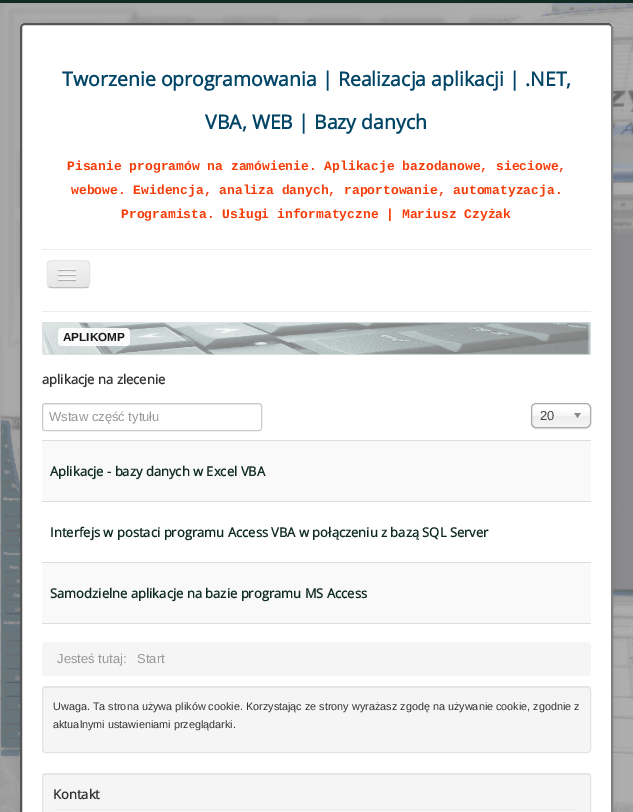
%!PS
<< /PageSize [633 812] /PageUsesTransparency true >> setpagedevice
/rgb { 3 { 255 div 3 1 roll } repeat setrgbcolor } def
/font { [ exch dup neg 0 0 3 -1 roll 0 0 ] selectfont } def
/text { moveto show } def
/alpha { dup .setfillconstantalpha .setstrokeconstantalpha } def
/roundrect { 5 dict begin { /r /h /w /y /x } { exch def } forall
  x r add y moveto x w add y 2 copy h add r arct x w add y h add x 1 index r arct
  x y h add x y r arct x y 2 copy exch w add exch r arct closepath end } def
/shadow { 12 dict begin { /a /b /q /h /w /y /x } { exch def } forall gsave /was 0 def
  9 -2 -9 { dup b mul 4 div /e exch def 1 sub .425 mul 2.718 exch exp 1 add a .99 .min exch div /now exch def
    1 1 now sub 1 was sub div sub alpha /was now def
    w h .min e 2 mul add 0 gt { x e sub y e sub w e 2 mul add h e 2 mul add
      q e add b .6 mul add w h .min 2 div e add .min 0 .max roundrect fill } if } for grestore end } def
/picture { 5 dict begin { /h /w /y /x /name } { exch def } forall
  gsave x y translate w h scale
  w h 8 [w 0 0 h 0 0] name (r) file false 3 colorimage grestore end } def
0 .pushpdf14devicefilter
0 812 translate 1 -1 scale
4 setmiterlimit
255 255 255 rgb
0 0 633 812 rectfill
(img_01.rgb) 0 3 633 809 picture
15 43 36 rgb
0 0 633 3 rectfill
0 0 0 rgb
20 23 593 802 4 3 0.05 shadow
255 255 255 rgb
20 23 593 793 4 roundrect fill
128 128 128 rgb
2 setlinewidth
611 25 moveto 1 2 rlineto 0 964 rlineto -1 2 rlineto -2 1 rlineto -585 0 rlineto -2 -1 rlineto stroke
85 85 85 rgb
22 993 moveto -1 -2 rlineto 0 -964 rlineto 1 -2 rlineto 2 -1 rlineto 585 0 rlineto 2 1 rlineto stroke
236 236 236 rgb
42 249 549 1 rectfill
42 311 549 1 rectfill
237 237 237 rgb
47 260 43 28 4 roundrect fill
gsave
47 260 43 28 4 roundrect clip newpath
gsave 47 261 moveto 43 0 rlineto 0 26 rlineto -43 0 rlineto closepath clip newpath
<< /ShadingType 2 /ColorSpace /DeviceRGB /Coords [69 261 69 287] /Extend [true true] /Function << /FunctionType 2 /Domain [0 1] /C0 [0.949 0.949 0.949] /C1 [0.902 0.902 0.902] /N 1 >> >> shfill grestore
grestore
191 191 191 rgb
1 setlinewidth
88.5 286.5 moveto -0.5 0.5 -1.5 1 -2.5 1 rcurveto -35 0 rlineto -1 0 -2 -0.5 -2.5 -1 rcurveto stroke
230 230 230 rgb
48.5 286.5 moveto -2 -2.5 -1 -10 -1 -12.5 rcurveto 0 -12 -2.5 -13.5 9.5 -13.5 rcurveto 23 0 rlineto 12 0 9.5 1.5 9.5 13.5 rcurveto 0 2.5 1 10 -1 12.5 rcurveto stroke
179 179 179 rgb
58 269.5 moveto -1 2 3.5 1.5 3.5 1.5 rcurveto 11 0 rlineto 0 0 4.5 0.5 3.5 -1.5 rcurveto -1 1 -7.5 0.5 -9 0.5 rcurveto -1.5 0 -8 0.5 -9 -0.5 rcurveto closepath fill
245 245 245 rgb
58 268 18 2 1 roundrect fill
176 176 176 rgb
58 274.5 moveto -1 2 3.5 1.5 3.5 1.5 rcurveto 11 0 rlineto 0 0 4.5 0.5 3.5 -1.5 rcurveto -1 1 -7.5 0.5 -9 0.5 rcurveto -1.5 0 -8 0.5 -9 -0.5 rcurveto closepath fill
245 245 245 rgb
58 273 18 2 1 roundrect fill
175 175 175 rgb
58 279.5 moveto -1 2 3.5 1.5 3.5 1.5 rcurveto 11 0 rlineto 0 0 4.5 0.5 3.5 -1.5 rcurveto -1 1 -7.5 0.5 -9 0.5 rcurveto -1.5 0 -8 0.5 -9 -0.5 rcurveto closepath fill
245 245 245 rgb
58 278 18 2 1 roundrect fill
(img_02.rgb) 42 322 549 33 picture
0.9 alpha
255 255 255 rgb
58 328 72 18 4 roundrect fill
1 alpha
236 236 236 rgb
45 405 moveto 214 0 rlineto 1 0 2 1 2 2 rcurveto 0 -1 0 -3 -2 -3 rcurveto -214 0 rlineto -1 1 rlineto -1 2 rlineto 0 -1 1 -2 2 -2 rcurveto closepath fill
204 204 204 rgb
42.5 403.5 219 27 2.5 roundrect stroke
0 0 0 rgb
531 404 60 25 5 0.5 0.1 shadow
gsave 532 404 58 23 4 roundrect clip newpath
<< /ShadingType 2 /ColorSpace /DeviceRGB /Coords [561 404 561 427] /Extend [true true] /Function << /FunctionType 3 /Domain [0 1] /Functions [<< /FunctionType 2 /Domain [0 1] /C0 [1 1 1] /C1 [1 1 1] /N 1 >> << /FunctionType 2 /Domain [0 1] /C0 [1 1 1] /C1 [0.965 0.965 0.965] /N 1 >> << /FunctionType 2 /Domain [0 1] /C0 [0.965 0.965 0.965] /C1 [0.933 0.933 0.933] /N 1 >> << /FunctionType 2 /Domain [0 1] /C0 [0.933 0.933 0.933] /C1 [0.957 0.957 0.957] /N 1 >>] /Bounds [0.2 0.5 0.52] /Encode [0 1 0 1 0 1 0 1] >> >> shfill grestore
170 170 170 rgb
531.5 403.5 59 24 4.5 roundrect stroke
(img_03.rgb) 574 413 7 6 picture
221 221 221 rgb
42 440 549 1 rectfill
249 249 249 rgb
42 441 549 60 rectfill
221 221 221 rgb
42 501 549 1 rectfill
42 562 549 1 rectfill
249 249 249 rgb
42 563 549 60 rectfill
221 221 221 rgb
42 623 549 1 rectfill
245 245 245 rgb
42 642 549 34 4 roundrect fill
42 686 549 67 4 roundrect fill
233 233 233 rgb
46 688 moveto 541 0 rlineto 2 0 3 1 3 3 rcurveto 0 -1 rlineto 0 -2 -1 -3 -3 -3 rcurveto -541 0 rlineto -2 0 -3 1 -3 3 rcurveto 0 1 rlineto 0 -2 1 -3 3 -3 rcurveto closepath fill
227 227 227 rgb
42.5 686.5 548 66 3.5 roundrect stroke
245 245 245 rgb
42 773 549 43 4 roundrect fill
233 233 233 rgb
46 775 moveto 541 0 rlineto 2 0 3 1 3 3 rcurveto 0 -1 rlineto 0 -2 -1 -3 -3 -3 rcurveto -541 0 rlineto -2 0 -3 1 -3 3 rcurveto 0 1 rlineto 0 -2 1 -3 3 -3 rcurveto closepath fill
227 227 227 rgb
42.5 773.5 548 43 3.5 roundrect stroke
238 238 238 rgb
53 809 527 1 rectfill
/OpenSans-Bold 19.5 font
0 68 102 rgb
(Tworzenie oprogramowania | Realizacja aplikacji | .NET,) 62 86 text
(VBA, WEB | Bazy danych) 205 129 text
/LiberationMono-Bold 13 font
245 61 10 rgb
(Pisanie programów na zamówienie. Aplikacje bazodanowe, sieciowe,) 67 170 text
(webowe. Ewidencja, analiza danych, raportowanie, automatyzacja.) 71 194 text
(Programista. Usługi informatyczne | Mariusz Czyżak) 121 218 text
/LiberationSans-Bold 11.75 font
25 25 25 rgb
(APLIKOMP) 63 341 text
/OpenSans-Bold 13 font
51 51 51 rgb
(aplikacje na zlecenie) 42 384 text
/LiberationSans-Regular 13 font
153 153 153 rgb
(Wstaw część tytułu) 49 421 text
68 68 68 rgb
(20) 540 420 text
/OpenSans-Bold 13 font
15 43 36 rgb
(Aplikacje - bazy danych w Excel VBA) 50 476 text
(Interfejs w postaci programu Access VBA w połączeniu z bazą SQL Server) 50 537 text
(Samodzielne aplikacje na bazie programu MS Access) 50 598 text
/LiberationSans-Regular 13 font
153 153 153 rgb
(Jesteś tutaj:) 57 663 text
(Start) 137 663 text
/LiberationSans-Regular 10.85 font
51 51 51 rgb
(Uwaga. Ta strona używa plików cookie. Korzystając ze strony wyrażasz zgodę na używanie cookie, zgodnie z) 53 710 text
(aktualnymi ustawieniami przeglądarki.) 53 728 text
/OpenSans-Bold 13 font
(Kontakt) 53 799 text
.poppdf14devicefilter showpage
